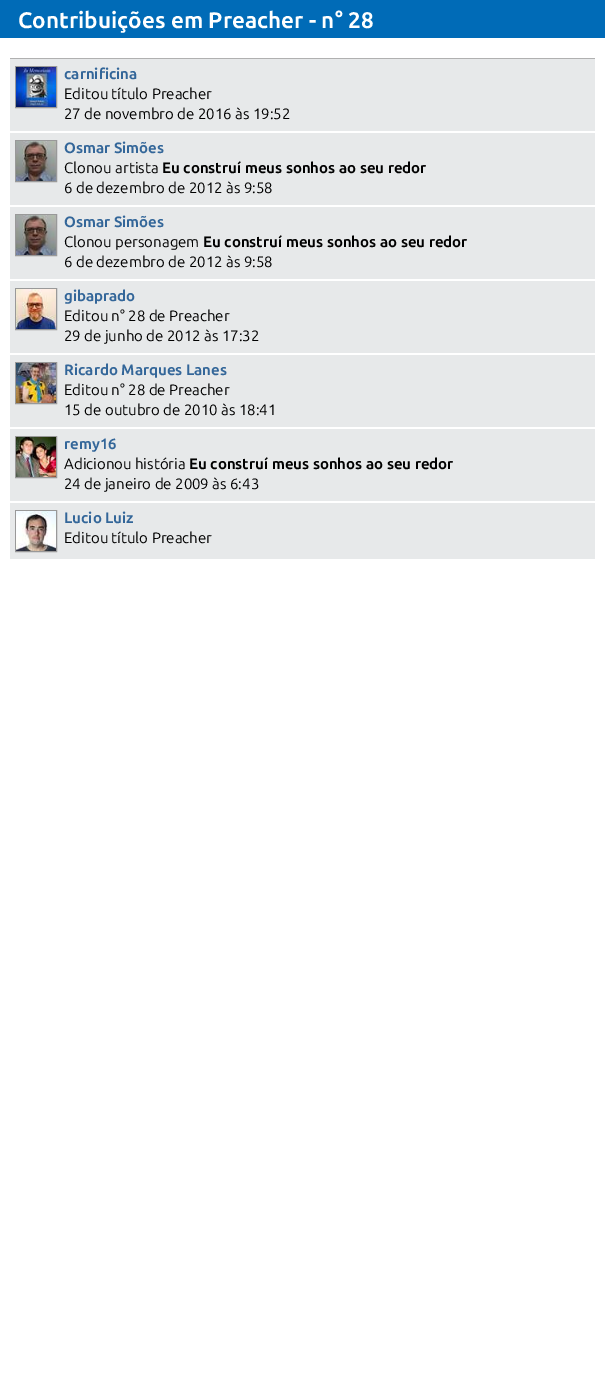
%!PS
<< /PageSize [605 1382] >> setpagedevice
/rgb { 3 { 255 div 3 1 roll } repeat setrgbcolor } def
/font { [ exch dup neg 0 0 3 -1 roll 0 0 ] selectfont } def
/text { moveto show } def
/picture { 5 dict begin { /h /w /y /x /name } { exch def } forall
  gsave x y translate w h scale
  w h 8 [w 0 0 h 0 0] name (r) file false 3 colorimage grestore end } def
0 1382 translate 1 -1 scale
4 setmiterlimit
255 255 255 rgb
0 0 605 1382 rectfill
0 107 183 rgb
0 0 605 38 rectfill
176 176 176 rgb
10 58 585 1 rectfill
231 233 234 rgb
10 59 585 72 rectfill
153 153 153 rgb
15.5 66.5 41 41 rectstroke
(img_01.rgb) 16 67 40 40 picture
231 233 234 rgb
10 133 585 72 rectfill
153 153 153 rgb
15.5 140.5 41 41 rectstroke
(img_02.rgb) 16 141 40 40 picture
231 233 234 rgb
10 207 585 72 rectfill
153 153 153 rgb
15.5 214.5 41 41 rectstroke
(img_02.rgb) 16 215 40 40 picture
231 233 234 rgb
10 281 585 72 rectfill
153 153 153 rgb
15.5 288.5 41 41 rectstroke
(img_03.rgb) 16 289 40 40 picture
231 233 234 rgb
10 355 585 72 rectfill
153 153 153 rgb
15.5 362.5 41 41 rectstroke
(img_04.rgb) 16 363 40 40 picture
231 233 234 rgb
10 429 585 72 rectfill
153 153 153 rgb
15.5 436.5 41 41 rectstroke
(img_05.rgb) 16 437 40 40 picture
231 233 234 rgb
10 503 585 56 rectfill
153 153 153 rgb
15.5 510.5 41 41 rectstroke
(img_06.rgb) 16 511 40 40 picture
/Ubuntu-Bold 22.5 font
255 255 255 rgb
(Contribuições em Preacher - n° 28) 18 28 text
/Ubuntu-Bold 15 font
51 102 153 rgb
(carnificina) 64 79 text
/Ubuntu-Regular 15 font
0 0 0 rgb
(Editou título Preacher) 64 99 text
(27 de novembro de 2016 às 19:52) 64 119 text
/Ubuntu-Bold 15 font
51 102 153 rgb
(Osmar Simões) 64 153 text
/Ubuntu-Regular 15 font
0 0 0 rgb
(Clonou artista) 64 173 text
/Ubuntu-Bold 15 font
(Eu construí meus sonhos ao seu redor) 162 173 text
/Ubuntu-Regular 15 font
(6 de dezembro de 2012 às 9:58) 64 193 text
/Ubuntu-Bold 15 font
51 102 153 rgb
(Osmar Simões) 64 227 text
/Ubuntu-Regular 15 font
0 0 0 rgb
(Clonou personagem) 64 247 text
/Ubuntu-Bold 15 font
(Eu construí meus sonhos ao seu redor) 203 247 text
/Ubuntu-Regular 15 font
(6 de dezembro de 2012 às 9:58) 64 267 text
/Ubuntu-Bold 15 font
51 102 153 rgb
(gibaprado) 64 301 text
/Ubuntu-Regular 15 font
0 0 0 rgb
(Editou n° 28 de Preacher) 64 321 text
(29 de junho de 2012 às 17:32) 64 341 text
/Ubuntu-Bold 15 font
51 102 153 rgb
(Ricardo Marques Lanes) 64 375 text
/Ubuntu-Regular 15 font
0 0 0 rgb
(Editou n° 28 de Preacher) 64 395 text
(15 de outubro de 2010 às 18:41) 64 415 text
/Ubuntu-Bold 15 font
51 102 153 rgb
(remy16) 64 449 text
/Ubuntu-Regular 15 font
0 0 0 rgb
(Adicionou história) 64 469 text
/Ubuntu-Bold 15 font
(Eu construí meus sonhos ao seu redor) 189 469 text
/Ubuntu-Regular 15 font
(24 de janeiro de 2009 às 6:43) 64 489 text
/Ubuntu-Bold 15 font
51 102 153 rgb
(Lucio Luiz) 64 523 text
/Ubuntu-Regular 15 font
0 0 0 rgb
(Editou título Preacher) 64 543 text
showpage
